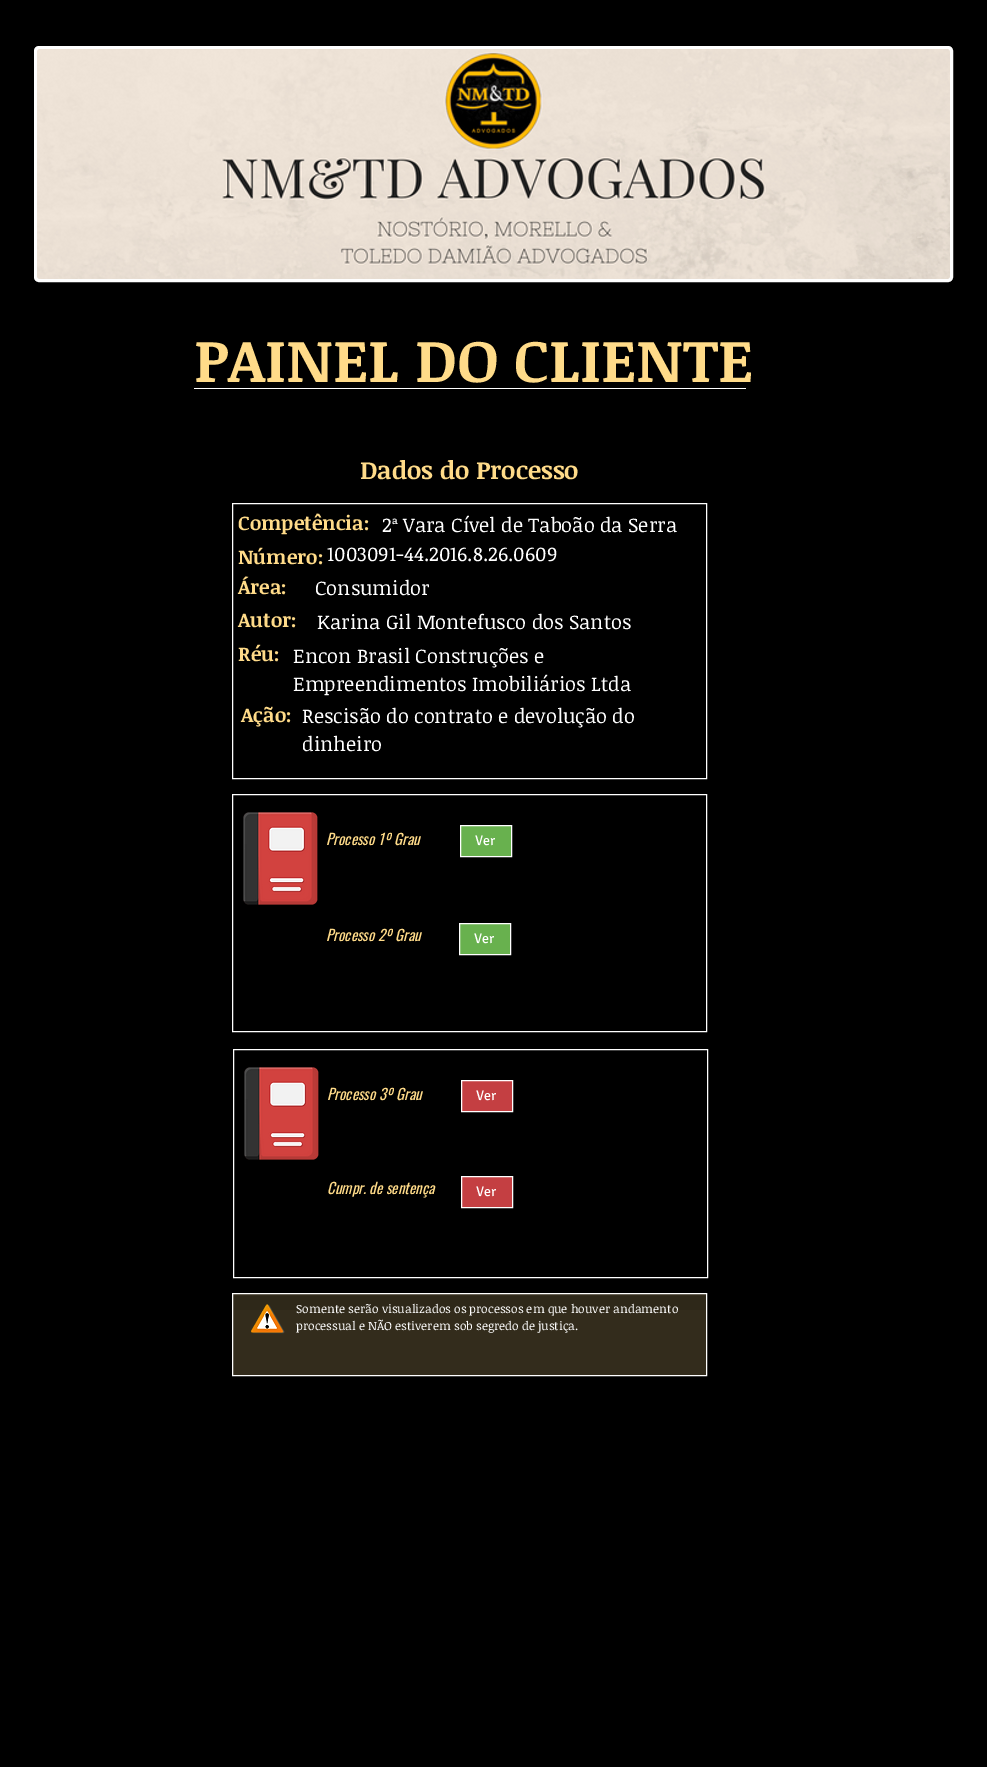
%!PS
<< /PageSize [987 1767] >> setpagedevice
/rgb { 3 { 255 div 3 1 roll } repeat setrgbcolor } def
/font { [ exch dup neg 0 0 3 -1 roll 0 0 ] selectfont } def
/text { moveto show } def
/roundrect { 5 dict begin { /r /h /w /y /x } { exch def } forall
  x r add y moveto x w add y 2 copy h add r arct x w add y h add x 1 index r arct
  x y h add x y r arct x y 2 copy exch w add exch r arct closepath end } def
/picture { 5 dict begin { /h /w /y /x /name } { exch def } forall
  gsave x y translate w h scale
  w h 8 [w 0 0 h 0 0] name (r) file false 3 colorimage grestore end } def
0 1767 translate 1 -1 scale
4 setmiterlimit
0 0 0 rgb
0 0 987 1767 rectfill
255 255 255 rgb
3 setlinewidth
35.5 47.5 916 233 3.5 roundrect stroke
(img_01.rgb) 37 49 913 230 picture
194 388 552 1 rectfill
1 setlinewidth
232.5 503.5 474 275 rectstroke
232.5 794.5 474 237 rectstroke
(img_02.rgb) 243 812 75 93 picture
104 177 78 rgb
460.5 825.5 moveto 51 0 rlineto 0 31 rlineto -51 0 rlineto closepath gsave fill grestore
255 255 255 rgb
stroke
104 177 78 rgb
459.5 923.5 moveto 51 0 rlineto 0 31 rlineto -51 0 rlineto closepath gsave fill grestore
255 255 255 rgb
stroke
233.5 1049.5 474 228 rectstroke
(img_02.rgb) 244 1067 75 93 picture
196 63 66 rgb
461.5 1080.5 moveto 51 0 rlineto 0 31 rlineto -51 0 rlineto closepath gsave fill grestore
255 255 255 rgb
stroke
196 63 66 rgb
461.5 1176.5 moveto 51 0 rlineto 0 31 rlineto -51 0 rlineto closepath gsave fill grestore
255 255 255 rgb
stroke
51 44 28 rgb
233 1294 473 81 rectfill
46 40 25 rgb
233 1296 473 14 rectfill
255 255 255 rgb
232.5 1293.5 474 82 rectstroke
(img_03.rgb) 251 1304 34 30 picture
/NoticiaText-Bold 60 font
255 219 137 rgb
(PAINEL DO CLIENTE) 194 382 text
/NoticiaText-Bold 25 font
(Dados do Processo) 360 479 text
/NoticiaText-Bold 20 font
(Competência:) 238 530 text
/NoticiaText-Regular 20 font
255 255 255 rgb
(2ª Vara Cível de Taboão da Serra) 382 532 text
/NoticiaText-Bold 20 font
255 219 137 rgb
(Número:) 238 564 text
(Área:) 238 594 text
/NoticiaText-Regular 20 font
255 255 255 rgb
(Consumidor) 315 595 text
/NoticiaText-Bold 20 font
255 219 137 rgb
(Autor:) 238 627 text
/NoticiaText-Regular 20 font
255 255 255 rgb
(Karina Gil Montefusco dos Santos) 317 629 text
/NoticiaText-Bold 20 font
255 219 137 rgb
(Réu:) 238 661 text
/NoticiaText-Regular 20 font
255 255 255 rgb
(Encon Brasil Construções e) 293 663 text
(Empreendimentos Imobiliários Ltda) 293 691 text
/NoticiaText-Bold 20 font
255 219 137 rgb
(Ação:) 241 722 text
/NoticiaText-Regular 20 font
255 255 255 rgb
(Rescisão do contrato e devolução do) 302 723 text
(dinheiro) 302 751 text
(1003091-44.2016.8.26.0609) 327 561 text
/Oswald-Italic 15 font
255 219 137 rgb
(Processo 1º Grau) 326 845 text
/Signika-Regular 14 font
255 255 255 rgb
(Ver) 475 845 text
/Oswald-Italic 15 font
255 219 137 rgb
(Processo 2º Grau) 326 941 text
/Signika-Regular 14 font
255 255 255 rgb
(Ver) 474 943 text
/Oswald-Italic 15 font
255 219 137 rgb
(Processo 3º Grau) 327 1100 text
/Signika-Regular 14 font
255 255 255 rgb
(Ver) 476 1100 text
/Oswald-Italic 15 font
255 219 137 rgb
(Cumpr. de sentença) 327 1194 text
/Signika-Regular 14 font
255 255 255 rgb
(Ver) 476 1196 text
/NoticiaText-Regular 12 font
(Somente serão visualizados os processos em que houver andamento) 296 1313 text
(processual e NÃO estiverem sob segredo de justiça.) 296 1330 text
showpage
